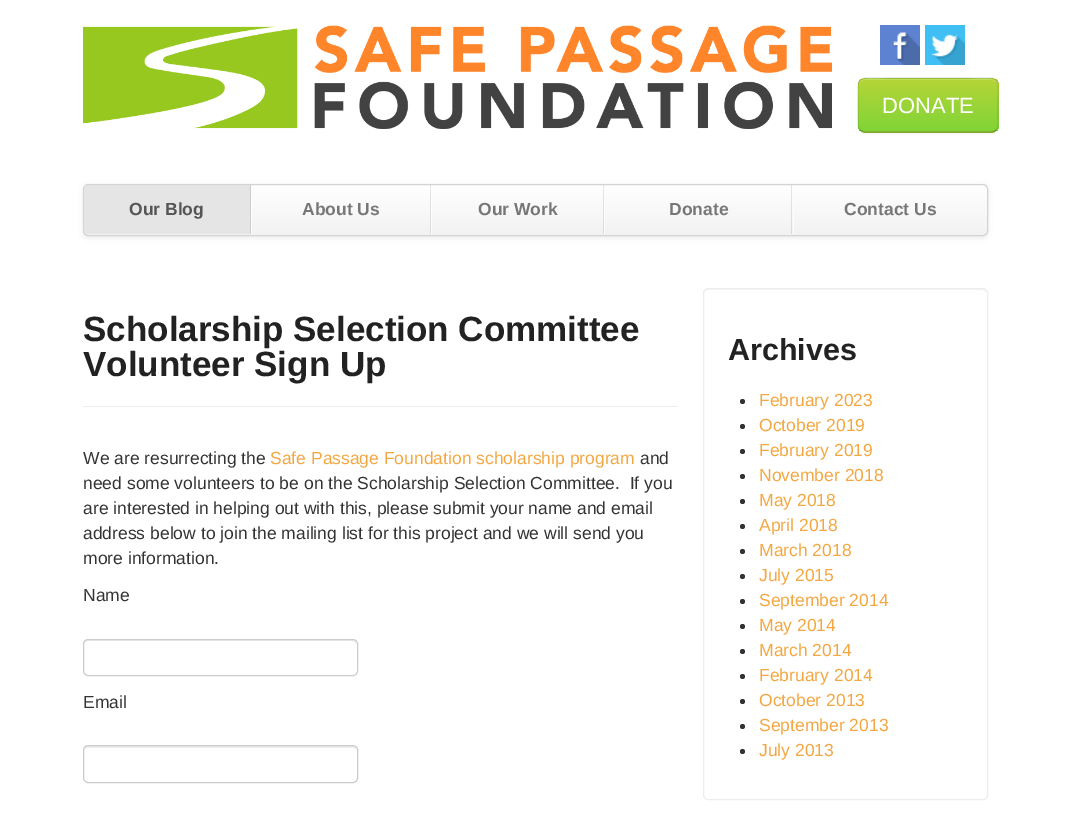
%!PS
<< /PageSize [1070 829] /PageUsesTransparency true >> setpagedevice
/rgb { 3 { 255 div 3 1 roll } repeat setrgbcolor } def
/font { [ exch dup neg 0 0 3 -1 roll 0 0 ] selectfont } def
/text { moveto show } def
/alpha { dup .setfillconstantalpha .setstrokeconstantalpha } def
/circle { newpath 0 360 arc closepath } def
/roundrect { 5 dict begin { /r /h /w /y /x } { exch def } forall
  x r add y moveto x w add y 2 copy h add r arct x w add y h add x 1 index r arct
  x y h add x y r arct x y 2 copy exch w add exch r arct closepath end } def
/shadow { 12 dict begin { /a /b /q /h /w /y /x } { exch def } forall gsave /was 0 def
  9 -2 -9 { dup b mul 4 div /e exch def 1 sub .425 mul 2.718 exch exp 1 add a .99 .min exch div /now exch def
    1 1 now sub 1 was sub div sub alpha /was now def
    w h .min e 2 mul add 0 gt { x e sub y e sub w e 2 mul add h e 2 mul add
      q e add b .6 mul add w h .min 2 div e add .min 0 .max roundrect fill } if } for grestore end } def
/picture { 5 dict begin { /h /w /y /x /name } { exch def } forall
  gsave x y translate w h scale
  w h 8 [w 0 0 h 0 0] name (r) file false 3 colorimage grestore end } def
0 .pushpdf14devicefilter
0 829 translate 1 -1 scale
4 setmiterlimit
255 255 255 rgb
0 0 1070 829 rectfill
(img_01.rgb) 83 25 749 104 picture
(img_02.rgb) 880 25 40 40 picture
(img_03.rgb) 925 25 40 40 picture
0 0 0 rgb
858 79 141 55 8 1 0.05 shadow
160 212 55 rgb
858 78 141 55 8 roundrect fill
gsave
858 78 141 55 8 roundrect clip newpath
gsave 858 79 moveto 141 0 rlineto 0 52 rlineto -141 0 rlineto closepath clip newpath
<< /ShadingType 2 /ColorSpace /DeviceRGB /Coords [928 79 928 131] /Extend [true true] /Function << /FunctionType 2 /Domain [0 1] /C0 [0.71 0.831 0.216] /C1 [0.506 0.831 0.216] /N 1 >> >> shfill grestore
grestore
0.2 alpha
255 255 255 rgb
865 80 moveto 126 0 rlineto 4 0 7 3 7 6 rcurveto 0 -12 -22 -7 -27 -7 rcurveto -85 0 rlineto -5 0 -27 -5 -27 7 rcurveto 0 -3 3 -6 6 -6 rcurveto closepath fill
0.25 alpha
0 0 0 rgb
1.2 setlinewidth
996 130 moveto -1 1 -3 2 -5 2 rcurveto -126 0 rlineto -2 0 -3.5 -1 -5 -2 rcurveto stroke
0.1 alpha
860 130 moveto -3 -3 -2 -8 -2 -11.5 rcurveto 0 -13.5 rlineto 0 -30.5 -4 -27 28 -27 rcurveto 84 0 rlineto 32 0 28 -3.5 28 27 rcurveto 0 13.5 rlineto 0 3.5 1 8.5 -2 11.5 rcurveto stroke
1 alpha
83 185 905 53 5 2.5 0.07 shadow
gsave
83 184 905 52 5 roundrect clip newpath
gsave 83 185 moveto 905 0 rlineto 0 50 rlineto -905 0 rlineto closepath clip newpath
<< /ShadingType 2 /ColorSpace /DeviceRGB /Coords [535 185 535 235] /Extend [true true] /Function << /FunctionType 2 /Domain [0 1] /C0 [1 1 1] /C1 [0.949 0.949 0.949] /N 1 >> >> shfill grestore
grestore
gsave 793 198 moveto 1 0 rlineto 0 36 rlineto -1 0 rlineto closepath clip newpath
<< /ShadingType 2 /ColorSpace /DeviceRGB /Coords [535 185 535 235] /Extend [true true] /Function << /FunctionType 2 /Domain [0 1] /C0 [1 1 1] /C1 [0.988 0.988 0.988] /N 1 >> >> shfill grestore
gsave 604 198 moveto 1 0 rlineto 0 36 rlineto -1 0 rlineto closepath clip newpath
<< /ShadingType 2 /ColorSpace /DeviceRGB /Coords [535 185 535 235] /Extend [true true] /Function << /FunctionType 2 /Domain [0 1] /C0 [1 1 1] /C1 [0.988 0.988 0.988] /N 1 >> >> shfill grestore
gsave 791 185 moveto 1 0 rlineto 0 49 rlineto -1 0 rlineto closepath clip newpath
<< /ShadingType 2 /ColorSpace /DeviceRGB /Coords [535 185 535 235] /Extend [true true] /Function << /FunctionType 2 /Domain [0 1] /C0 [0.902 0.902 0.902] /C1 [0.855 0.855 0.855] /N 1 >> >> shfill grestore
gsave 431 198 moveto 1 0 rlineto 0 36 rlineto -1 0 rlineto closepath clip newpath
<< /ShadingType 2 /ColorSpace /DeviceRGB /Coords [535 185 535 235] /Extend [true true] /Function << /FunctionType 2 /Domain [0 1] /C0 [1 1 1] /C1 [0.988 0.988 0.988] /N 1 >> >> shfill grestore
gsave 603 185 moveto 1 0 rlineto 0 49 rlineto -1 0 rlineto closepath clip newpath
<< /ShadingType 2 /ColorSpace /DeviceRGB /Coords [535 185 535 235] /Extend [true true] /Function << /FunctionType 2 /Domain [0 1] /C0 [0.902 0.902 0.902] /C1 [0.855 0.855 0.855] /N 1 >> >> shfill grestore
gsave 251 198 moveto 1 0 rlineto 0 36 rlineto -1 0 rlineto closepath clip newpath
<< /ShadingType 2 /ColorSpace /DeviceRGB /Coords [535 185 535 235] /Extend [true true] /Function << /FunctionType 2 /Domain [0 1] /C0 [1 1 1] /C1 [0.988 0.988 0.988] /N 1 >> >> shfill grestore
gsave 430 185 moveto 1 0 rlineto 0 49 rlineto -1 0 rlineto closepath clip newpath
<< /ShadingType 2 /ColorSpace /DeviceRGB /Coords [535 185 535 235] /Extend [true true] /Function << /FunctionType 2 /Domain [0 1] /C0 [0.902 0.902 0.902] /C1 [0.855 0.855 0.855] /N 1 >> >> shfill grestore
212 212 212 rgb
1 setlinewidth
83.5 184.5 904 51 4.5 roundrect stroke
229 229 229 rgb
88 185 moveto 163 0 rlineto 0 49 rlineto -163 0 rlineto -2 0 -4 -2 -4 -4 rcurveto 0 -41 rlineto 0 -2 2 -4 4 -4 rcurveto closepath fill
206 206 206 rgb
250 185 1 49 rectfill
238 238 238 rgb
83 406 595 1 rectfill
236 236 236 rgb
88 641 moveto 264 0 rlineto 3 0 4 2 4 4 rcurveto 0 -3 -1 -5 -4 -5 rcurveto -264 0 rlineto -3 0 -4 2 -4 5 rcurveto 0 -2 1 -4 4 -4 rcurveto closepath fill
204 204 204 rgb
83.5 639.5 274 36 4.5 roundrect stroke
236 236 236 rgb
88 748 moveto 264 0 rlineto 3 0 4 1 4 3 rcurveto 0 -3 -1 -5 -4 -5 rcurveto -264 0 rlineto -3 0 -4 2 -4 5 rcurveto 0 -2 1 -3 4 -3 rcurveto closepath fill
204 204 204 rgb
83.5 745.5 274 37 4.5 roundrect stroke
242 242 242 rgb
708 290 moveto 274 0 rlineto 3 0 4 2 4 4 rcurveto 0 -3 -1 -5 -4 -5 rcurveto -274 0 rlineto -3 0 -4 2 -4 5 rcurveto 0 -2 1 -4 4 -4 rcurveto closepath fill
237 237 237 rgb
703.5 288.5 284 511 4.5 roundrect stroke
51 51 51 rgb
742.5 401.5 2.5 circle fill
742.5 426.5 2.5 circle fill
742.5 451.5 2.5 circle fill
742.5 476.5 2.5 circle fill
742.5 501.5 2.5 circle fill
742.5 526.5 2.5 circle fill
742.5 551.5 2.5 circle fill
742.5 576.5 2.5 circle fill
742.5 601.5 2.5 circle fill
742.5 626.5 2.5 circle fill
742.5 651.5 2.5 circle fill
742.5 676.5 2.5 circle fill
742.5 701.5 2.5 circle fill
742.5 726.5 2.5 circle fill
742.5 751.5 2.5 circle fill
/LiberationSans-Regular 22 font
255 255 255 rgb
(DONATE) 882 113 text
/LiberationSans-Bold 17.5 font
85 85 85 rgb
(Our Blog) 129 215 text
119 119 119 rgb
(About Us) 302 215 text
(Our Work) 478 215 text
(Donate) 669 215 text
(Contact Us) 844 215 text
/LiberationSans-Bold 35 font
34 34 34 rgb
(Scholarship Selection Committee) 83 341 text
(Volunteer Sign Up) 83 376 text
/LiberationSans-Regular 17.5 font
51 51 51 rgb
(We are resurrecting the) 83 464 text
243 167 66 rgb
(Safe Passage Foundation scholarship program) 270 464 text
51 51 51 rgb
(and) 640 464 text
(need some volunteers to be on the Scholarship Selection Committee.  If you) 83 489 text
(are interested in helping out with this, please submit your name and email) 83 514 text
(address below to join the mailing list for this project and we will send you) 83 539 text
(more information.) 83 564 text
(Name) 83 601 text
(Email) 83 708 text
/LiberationSans-Bold 30.5 font
34 34 34 rgb
(Archives) 728 360 text
/LiberationSans-Regular 17.5 font
243 167 66 rgb
(February 2023) 759 406 text
(October 2019) 759 431 text
(February 2019) 759 456 text
(November 2018) 759 481 text
(May 2018) 759 506 text
(April 2018) 759 531 text
(March 2018) 759 556 text
(July 2015) 759 581 text
(September 2014) 759 606 text
(May 2014) 759 631 text
(March 2014) 759 656 text
(February 2014) 759 681 text
(October 2013) 759 706 text
(September 2013) 759 731 text
(July 2013) 759 756 text
.poppdf14devicefilter showpage
